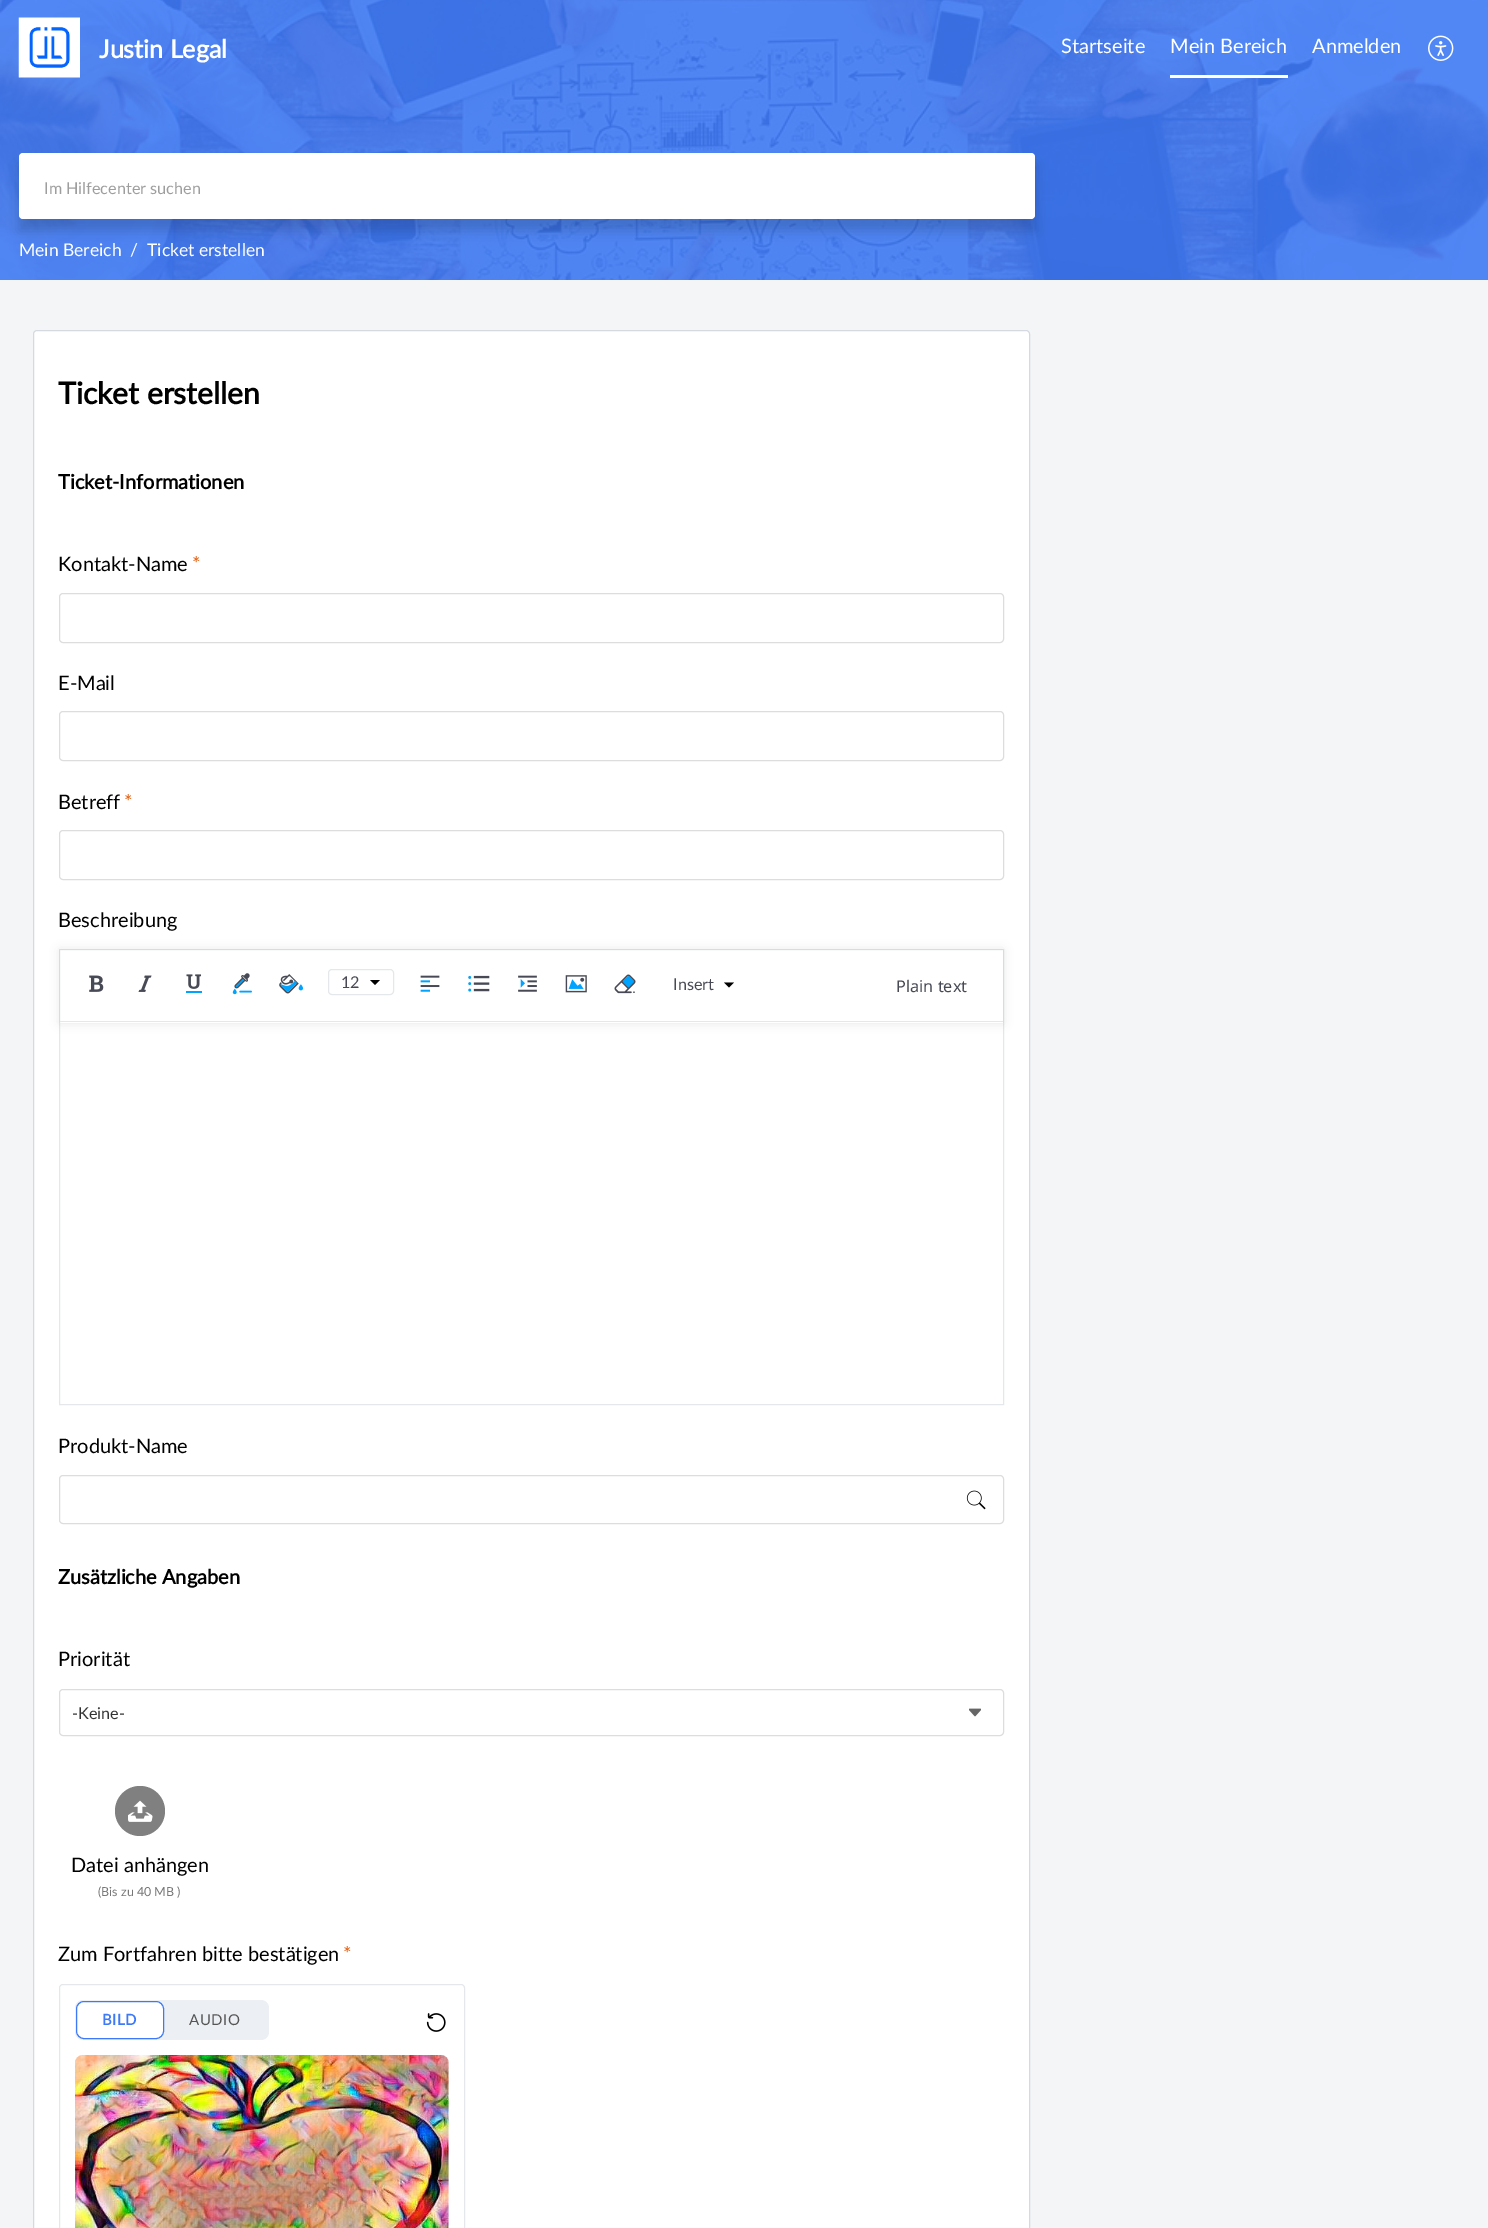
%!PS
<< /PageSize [1488 2228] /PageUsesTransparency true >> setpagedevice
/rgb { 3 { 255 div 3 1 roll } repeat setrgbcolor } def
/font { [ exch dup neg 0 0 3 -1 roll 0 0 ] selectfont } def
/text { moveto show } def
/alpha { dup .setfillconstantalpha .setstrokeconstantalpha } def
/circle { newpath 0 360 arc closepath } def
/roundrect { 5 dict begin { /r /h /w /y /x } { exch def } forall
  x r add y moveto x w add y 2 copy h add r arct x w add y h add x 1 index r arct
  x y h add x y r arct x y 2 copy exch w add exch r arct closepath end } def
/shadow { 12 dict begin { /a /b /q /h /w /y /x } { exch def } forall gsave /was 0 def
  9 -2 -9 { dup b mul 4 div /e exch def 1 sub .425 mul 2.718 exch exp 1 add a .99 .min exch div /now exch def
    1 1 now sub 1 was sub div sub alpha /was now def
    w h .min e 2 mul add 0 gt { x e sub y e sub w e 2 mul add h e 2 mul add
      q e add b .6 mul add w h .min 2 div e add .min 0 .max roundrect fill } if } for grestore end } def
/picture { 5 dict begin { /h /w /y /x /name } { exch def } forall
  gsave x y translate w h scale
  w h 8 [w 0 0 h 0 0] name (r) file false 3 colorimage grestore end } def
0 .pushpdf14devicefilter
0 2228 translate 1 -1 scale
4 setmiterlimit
243 245 247 rgb
0 0 1488 2228 rectfill
(img_01.rgb) 0 0 1488 280 picture
(img_02.rgb) 18 17 62 61 picture
255 255 255 rgb
1170 75 118 3 rectfill
(img_03.rgb) 1428 35 26 26 picture
0 0 0 rgb
19 165 1016 66 0 6 0.16 shadow
255 255 255 rgb
19 153 1016 66 4 roundrect fill
37 330 moveto 989 0 rlineto 2 0 4 2 4 4 rcurveto 0 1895 rlineto -997 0 rlineto 0 -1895 rlineto 0 -2 2 -4 4 -4 rcurveto closepath fill
212 218 223 rgb
33.5 330.5 996 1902 3.5 roundrect stroke
221 221 221 rgb
59.5 593.5 944 49 3.5 roundrect stroke
59.5 711.5 944 49 3.5 roundrect stroke
59.5 830.5 944 49 3.5 roundrect stroke
229 232 234 rgb
59.5 949.5 944 455 rectstroke
gsave
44 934 moveto 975 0 rlineto 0 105 rlineto -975 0 rlineto closepath 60 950 moveto 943 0 rlineto 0 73 rlineto -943 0 rlineto closepath eoclip newpath
0 0 0 rgb
60 950 943 73 0 5 0.1 shadow
grestore
60 1021 943 1 rectfill
(img_04.rgb) 89 975 15 17 picture
(img_05.rgb) 138 975 14 17 picture
(img_06.rgb) 186 974 16 19 picture
(img_07.rgb) 232 973 20 22 picture
(img_08.rgb) 279 974 25 20 picture
328.5 969.5 65 25 3.5 roundrect stroke
0 0 0 rgb
370 980 moveto 10 0 rlineto -5 5 rlineto closepath fill
(img_09.rgb) 420 975 20 17 picture
(img_10.rgb) 468 975 22 17 picture
(img_11.rgb) 518 975 19 17 picture
(img_12.rgb) 565 975 22 18 picture
(img_13.rgb) 614 974 22 20 picture
724 982.5 moveto 10 0 rlineto -5 5 rlineto closepath fill
221 221 221 rgb
59.5 1475.5 944 48 3.5 roundrect stroke
(img_14.rgb) 966 1490 20 20 picture
59.5 1689.5 944 46 3.5 roundrect stroke
(img_15.rgb) 969 1708 12 9 picture
128 128 128 rgb
140 1811 25 circle fill
(img_16.rgb) 128 1800 25 22 picture
229 232 234 rgb
59.5 1984.5 405 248 3.5 roundrect stroke
236 239 243 rgb
75 2000 194 40 8 roundrect fill
255 255 255 rgb
76.5 2001.5 87 37 7.5 roundrect gsave fill grestore
62 122 247 rgb
stroke
(img_17.rgb) 426 2013 20 19 picture
(img_18.rgb) 75 2055 374 173 picture
/Lato-Bold 25 font
255 255 255 rgb
(Justin Legal) 99 58 text
/Lato-Regular 20 font
(Startseite) 1061 53 text
(Mein Bereich) 1170 53 text
(Anmelden) 1312 53 text
/Lato-Regular 16.25 font
158 158 158 rgb
(Im Hilfecenter suchen) 44 194 text
/Lato-Regular 17.5 font
255 255 255 rgb
(Mein Bereich) 19 256 text
(/) 130 256 text
(Ticket erstellen) 147 256 text
/Lato-Bold 30 font
0 0 0 rgb
(Ticket erstellen) 58 404 text
/Lato-Bold 20 font
(Ticket-Informationen) 58 489 text
/Lato-Regular 20 font
(Kontakt-Name) 58 571 text
228 99 23 rgb
(*) 192 571 text
0 0 0 rgb
(E-Mail) 58 690 text
(Betreff) 58 809 text
228 99 23 rgb
(*) 124 809 text
0 0 0 rgb
(Beschreibung) 58 927 text
/Lato-Regular 16.25 font
71 74 84 rgb
(12) 341 988 text
(Insert) 673 990 text
/NotoSans-Regular 16.25 font
(Plain text) 896 992 text
/Lato-Regular 20 font
0 0 0 rgb
(Produkt-Name) 58 1453 text
/Lato-Bold 20 font
(Zusätzliche Angaben) 58 1584 text
/Lato-Regular 20 font
(Priorität) 58 1666 text
/Lato-Regular 16.25 font
51 51 51 rgb
(-Keine-) 72 1719 text
/Lato-Regular 20 font
0 0 0 rgb
(Datei anhängen) 71 1872 text
/Lato-Regular 12.5 font
119 119 119 rgb
(\(Bis zu 40 MB \)) 98 1896 text
/Lato-Regular 20 font
0 0 0 rgb
(Zum Fortfahren bitte bestätigen) 58 1961 text
228 99 23 rgb
(*) 343 1961 text
/Lato-Bold 15 font
62 122 247 rgb
102 2025 moveto 0.5 0 (BILD) ashow
/Lato-Regular 15 font
85 85 85 rgb
189 2025 moveto 0.5 0 (AUDIO) ashow
.poppdf14devicefilter showpage
